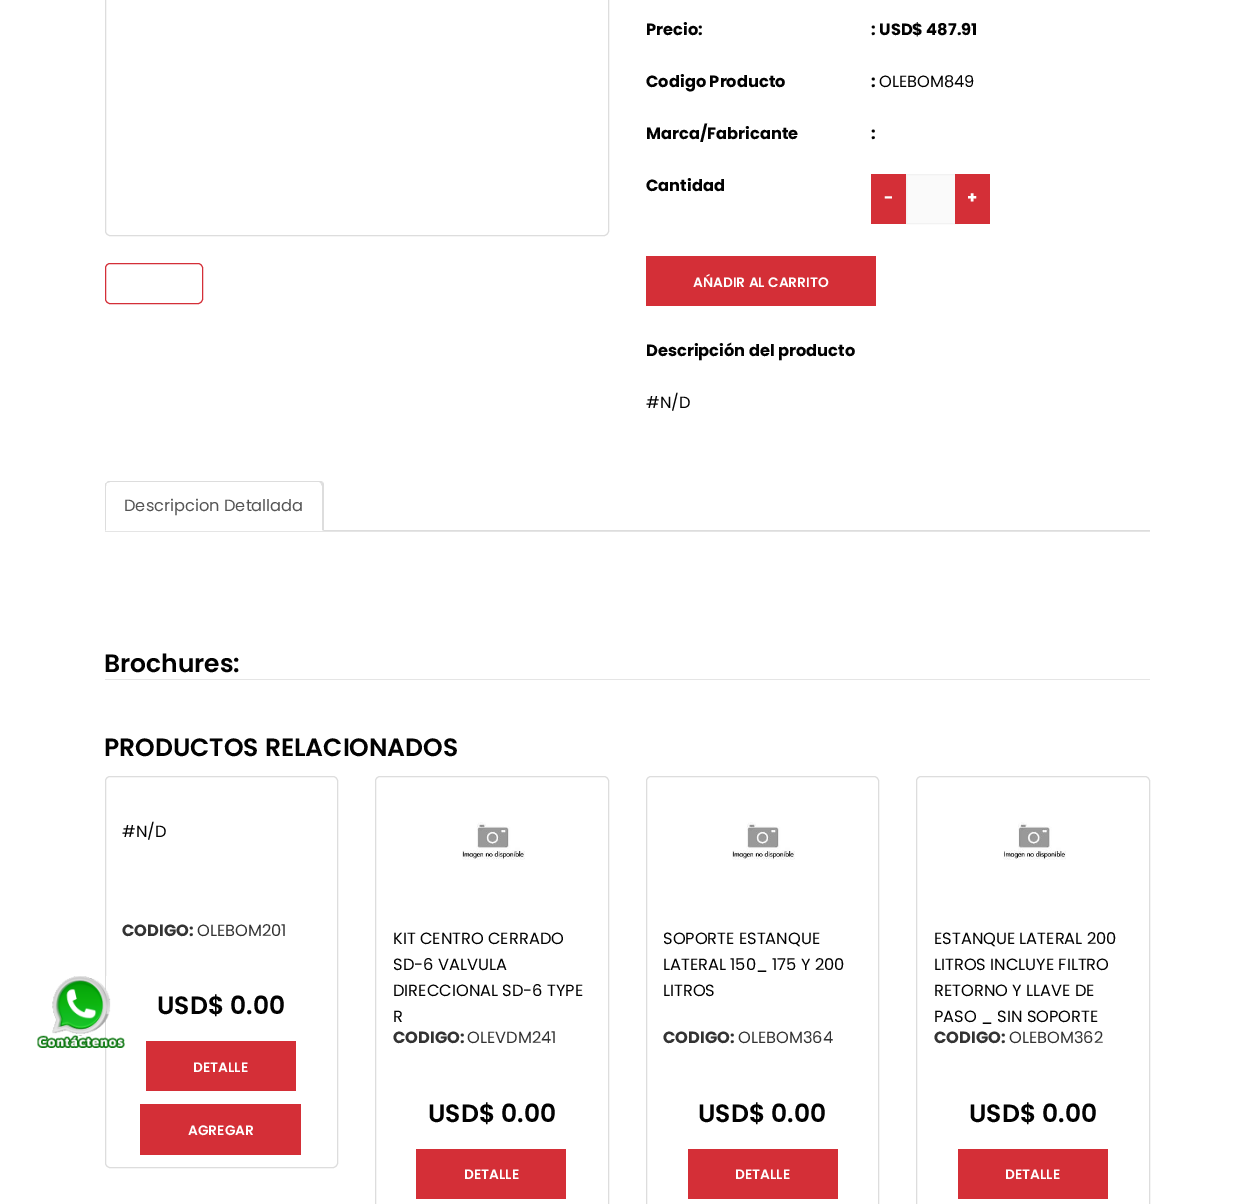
%!PS
<< /PageSize [1253 1204] >> setpagedevice
/rgb { 3 { 255 div 3 1 roll } repeat setrgbcolor } def
/font { [ exch dup neg 0 0 3 -1 roll 0 0 ] selectfont } def
/text { moveto show } def
/roundrect { 5 dict begin { /r /h /w /y /x } { exch def } forall
  x r add y moveto x w add y 2 copy h add r arct x w add y h add x 1 index r arct
  x y h add x y r arct x y 2 copy exch w add exch r arct closepath end } def
/picture { 5 dict begin { /h /w /y /x /name } { exch def } forall
  gsave x y translate w h scale
  w h 8 [w 0 0 h 0 0] name (r) file false 3 colorimage grestore end } def
0 1204 translate 1 -1 scale
4 setmiterlimit
255 255 255 rgb
0 0 1253 1204 rectfill
221 221 221 rgb
105.5 776.5 232 391 4.5 roundrect stroke
(img_01.rgb) 37 976 88 72 picture
105.5 -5.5 503 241 4.5 roundrect stroke
212 47 56 rgb
105.5 263.5 97 40 4.5 roundrect stroke
212 47 55 rgb
871 174 35 50 rectfill
250 250 250 rgb
907 175 48 48 rectfill
242 242 242 rgb
906.5 174.5 52 49 rectstroke
212 47 55 rgb
955 174 35 50 rectfill
646 256 230 50 rectfill
221 221 221 rgb
324 530 826 1 rectfill
110 482 moveto -3 1 rlineto -1 0 rlineto 2 -2 rlineto 213 0 rlineto 2 1 rlineto -2 2 rlineto 0 -1 -1 -2 -2 -2 rcurveto closepath fill
324 531 moveto -2 -1 rlineto 0 -44 rlineto -1 -2 rlineto 2 -2 rlineto 1 2 rlineto closepath fill
105 486 moveto 0 45 rlineto 1 -1 rlineto 0 -44 rlineto 0 -1 0 -2 1 -3 rcurveto -1 0 rlineto -1 0 -1 2 -1 3 rcurveto closepath fill
229 229 229 rgb
105 531 1045 1 rectfill
105 679 1045 1 rectfill
212 47 55 rgb
146 1041 150 50 rectfill
140 1104 161 51 rectfill
221 221 221 rgb
375.5 776.5 233 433 4.5 roundrect stroke
(img_02.rgb) 462 822 63 38 picture
212 47 55 rgb
416 1149 150 50 rectfill
221 221 221 rgb
646.5 776.5 232 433 4.5 roundrect stroke
(img_02.rgb) 732 822 63 38 picture
212 47 55 rgb
688 1149 150 50 rectfill
221 221 221 rgb
916.5 776.5 233 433 4.5 roundrect stroke
(img_03.rgb) 1003 822 63 38 picture
212 47 55 rgb
958 1149 150 50 rectfill
/Poppins-Bold 16.25 font
2 2 2 rgb
(Precio:) 646 35 text
(: USD$ 487.91) 871 35 text
(Codigo Producto) 646 87 text
(:) 871 87 text
/Poppins-Regular 16.25 font
(OLEBOM849) 879 87 text
/Poppins-Bold 16.25 font
(Marca/Fabricante) 646 139 text
(:) 871 139 text
(Cantidad) 646 191 text
255 255 255 rgb
(-) 884 203 text
(+) 967 203 text
/Poppins-SemiBold 13.75 font
(AŃADIR AL CARRITO) 693 287 text
/Poppins-Bold 16.25 font
2 2 2 rgb
(Descripción del producto) 646 356 text
/Poppins-Regular 16.25 font
(#N/D) 646 408 text
85 85 85 rgb
(Descripcion Detallada) 124 511 text
/Poppins-SemiBold 25 font
2 2 2 rgb
(Brochures:) 104 672 text
(PRODUCTOS RELACIONADOS) 104 756 text
/Poppins-Regular 16.25 font
(#N/D) 122 837 text
/Poppins-Bold 16.25 font
51 51 51 rgb
(CODIGO:) 122 936 text
/Poppins-Regular 16.25 font
(OLEBOM201) 197 936 text
/Poppins-SemiBold 25 font
2 2 2 rgb
(USD$ 0.00) 157 1014 text
/Poppins-SemiBold 13.75 font
255 255 255 rgb
(DETALLE) 193 1072 text
(AGREGAR) 188 1135 text
/Poppins-Regular 16.25 font
2 2 2 rgb
(KIT CENTRO CERRADO) 393 944 text
(SD-6 VALVULA) 393 970 text
(DIRECCIONAL SD-6 TYPE) 393 996 text
(R) 393 1022 text
/Poppins-Bold 16.25 font
51 51 51 rgb
(CODIGO:) 393 1043 text
/Poppins-Regular 16.25 font
(OLEVDM241) 467 1043 text
/Poppins-SemiBold 25 font
2 2 2 rgb
(USD$ 0.00) 428 1122 text
/Poppins-SemiBold 13.75 font
255 255 255 rgb
(DETALLE) 464 1179 text
/Poppins-Regular 16.25 font
2 2 2 rgb
(SOPORTE ESTANQUE) 663 944 text
(LATERAL 150_ 175 Y 200) 663 970 text
(LITROS) 663 996 text
/Poppins-Bold 16.25 font
51 51 51 rgb
(CODIGO:) 663 1043 text
/Poppins-Regular 16.25 font
(OLEBOM364) 738 1043 text
/Poppins-SemiBold 25 font
2 2 2 rgb
(USD$ 0.00) 698 1122 text
/Poppins-SemiBold 13.75 font
255 255 255 rgb
(DETALLE) 735 1179 text
/Poppins-Regular 16.25 font
2 2 2 rgb
(ESTANQUE LATERAL 200) 934 944 text
(LITROS INCLUYE FILTRO) 934 970 text
(RETORNO Y LLAVE DE) 934 996 text
(PASO _ SIN SOPORTE) 934 1022 text
/Poppins-Bold 16.25 font
51 51 51 rgb
(CODIGO:) 934 1043 text
/Poppins-Regular 16.25 font
(OLEBOM362) 1009 1043 text
/Poppins-SemiBold 25 font
2 2 2 rgb
(USD$ 0.00) 969 1122 text
/Poppins-SemiBold 13.75 font
255 255 255 rgb
(DETALLE) 1005 1179 text
showpage
